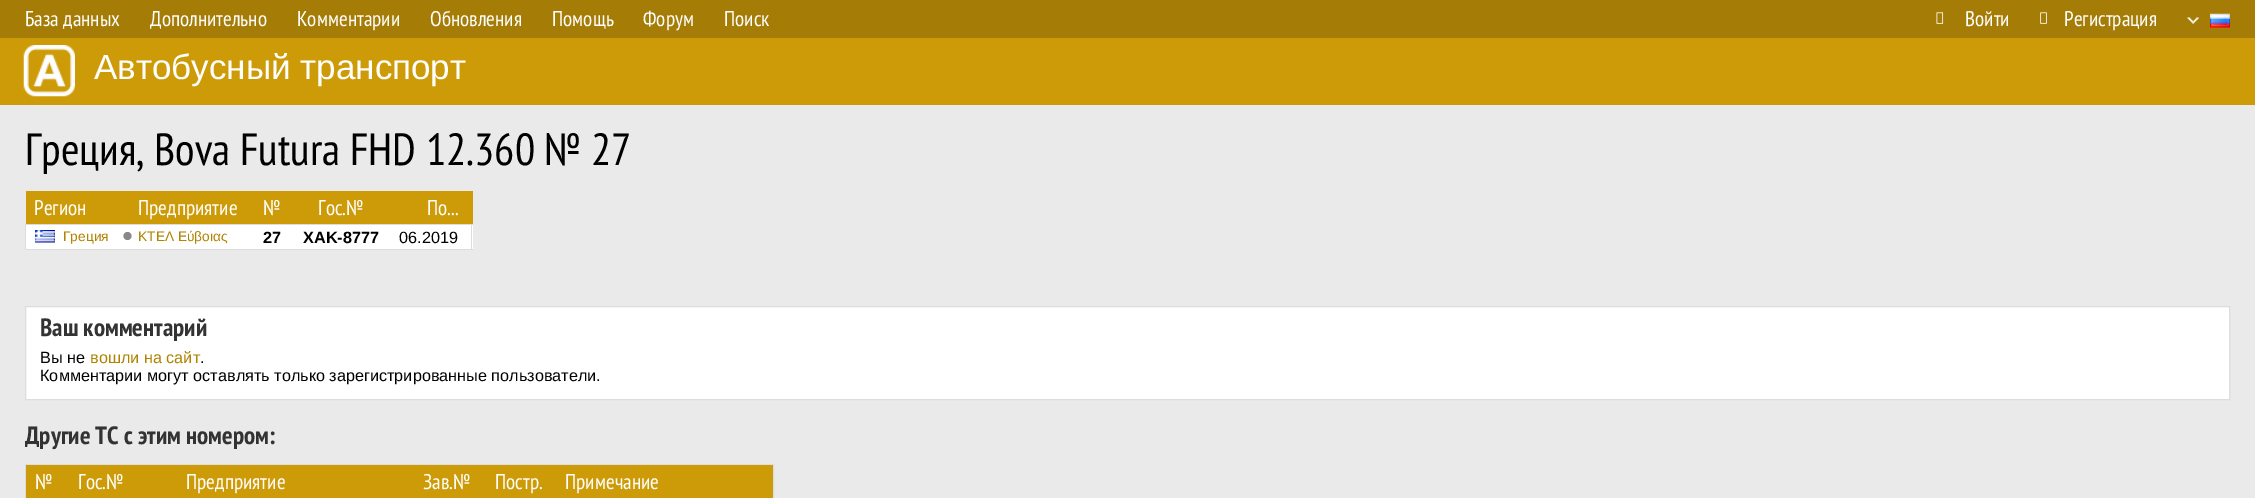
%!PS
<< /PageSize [2255 498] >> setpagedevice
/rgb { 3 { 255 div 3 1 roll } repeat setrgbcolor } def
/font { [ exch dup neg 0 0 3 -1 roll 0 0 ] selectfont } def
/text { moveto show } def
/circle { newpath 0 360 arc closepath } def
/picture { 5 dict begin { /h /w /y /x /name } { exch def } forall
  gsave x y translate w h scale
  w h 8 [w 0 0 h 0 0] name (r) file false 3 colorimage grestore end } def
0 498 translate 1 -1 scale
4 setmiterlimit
164 124 6 rgb
0 0 2255 498 rectfill
(img_01.rgb) 1936 12 8 12 picture
(img_02.rgb) 2040 12 7 12 picture
(img_03.rgb) 2187 17 12 7 picture
(img_04.rgb) 2210 13 20 15 picture
205 155 8 rgb
0 38 2255 67 rectfill
(img_05.rgb) 23 45 52 52 picture
234 234 234 rgb
0 105 2255 393 rectfill
205 155 8 rgb
26 191 447 33 rectfill
255 255 255 rgb
26 225 447 24 rectfill
221 221 221 rgb
25 224 448 1 rectfill
471 224 1 26 rectfill
25 249 448 1 rectfill
25 224 1 26 rectfill
(img_06.rgb) 35 230 20 13 picture
136 136 136 rgb
127.5 236 4 circle fill
255 255 255 rgb
25.5 306.5 moveto 2204 0 rlineto 0 93 rlineto -2204 0 rlineto closepath gsave fill grestore
221 221 221 rgb
stroke
25.5 464.5 748 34 rectstroke
205 155 8 rgb
26 465 747 33 rectfill
/PTSansNarrow-Regular 21.25 font
255 255 255 rgb
(База данных) 25 26 text
(Дополнительно) 150 26 text
(Комментарии) 297 26 text
(Обновления) 430 26 text
(Помощь) 552 26 text
(Форум) 643 26 text
(Поиск) 724 26 text
(Войти) 1965 26 text
(Регистрация) 2064 26 text
/LiberationSans-Regular 35 font
(Автобусный транспорт) 94 79 text
/PTSansNarrow-Regular 45 font
0 0 0 rgb
(Греция, Bova Futura FHD 12.360 № 27) 25 165 text
/PTSansNarrow-Regular 21.25 font
255 255 255 rgb
(Регион) 34 215 text
(Предприятие) 138 215 text
(№) 263 215 text
(Гос.№) 318 215 text
(По...) 427 215 text
/LiberationSans-Regular 13.75 font
176 131 0 rgb
(Греция) 63 241 text
(ΚΤΕΛ Εύβοιας) 138 241 text
/LiberationSans-Bold 16.25 font
0 0 0 rgb
(27) 263 243 text
(XAK-8777) 303 243 text
/LiberationSans-Regular 16.25 font
(06.2019) 399 243 text
/PTSansNarrow-Bold 25 font
51 51 51 rgb
(Ваш комментарий) 40 336 text
/LiberationSans-Regular 16.25 font
0 0 0 rgb
(Вы не) 40 363 text
176 131 0 rgb
(вошли на сайт) 90 363 text
0 0 0 rgb
(.) 200 363 text
(Комментарии могут оставлять только зарегистрированные пользователи.) 40 381 text
/PTSansNarrow-Bold 25 font
51 51 51 rgb
(Другие ТС с этим номером:) 25 444 text
/PTSansNarrow-Regular 21.25 font
255 255 255 rgb
(№) 35 489 text
(Гос.№) 78 489 text
(Предприятие) 186 489 text
(Зав.№) 423 489 text
(Постр.) 495 489 text
(Примечание) 565 489 text
showpage
